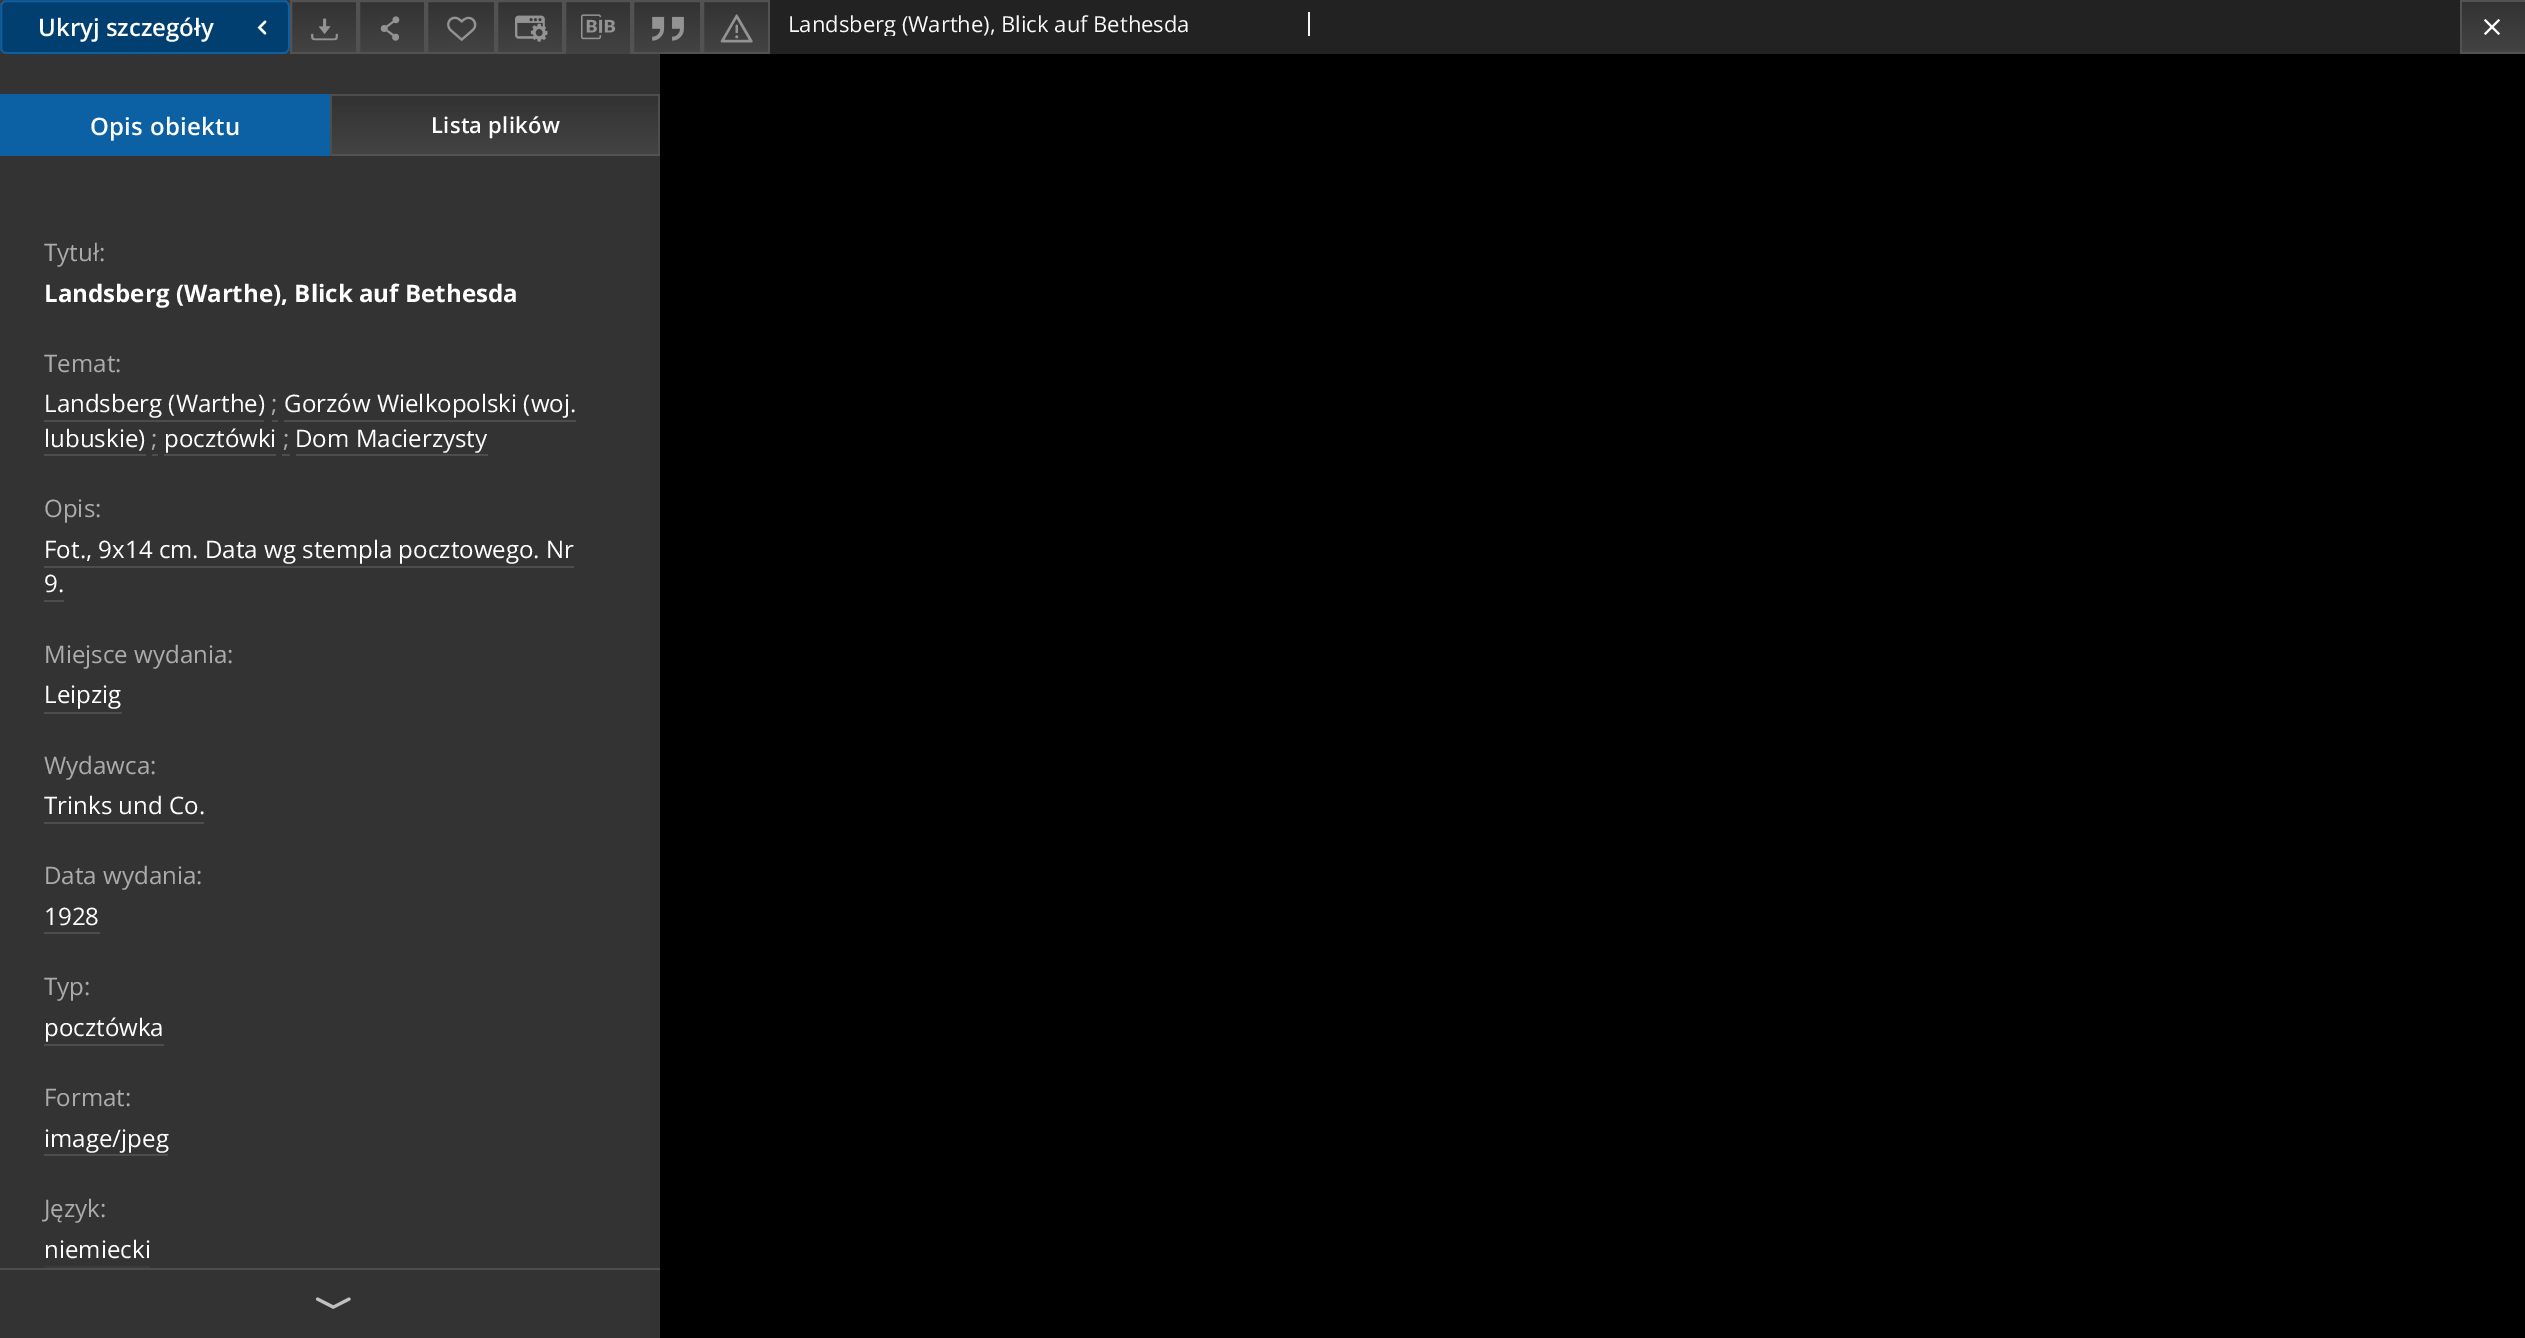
%!PS
<< /PageSize [2525 1338] /PageUsesTransparency true >> setpagedevice
/rgb { 3 { 255 div 3 1 roll } repeat setrgbcolor } def
/font { [ exch dup neg 0 0 3 -1 roll 0 0 ] selectfont } def
/text { moveto show } def
/alpha { dup .setfillconstantalpha .setstrokeconstantalpha } def
/roundrect { 5 dict begin { /r /h /w /y /x } { exch def } forall
  x r add y moveto x w add y 2 copy h add r arct x w add y h add x 1 index r arct
  x y h add x y r arct x y 2 copy exch w add exch r arct closepath end } def
/shadow { 12 dict begin { /a /b /q /h /w /y /x } { exch def } forall gsave /was 0 def
  9 -2 -9 { dup b mul 4 div /e exch def 1 sub .425 mul 2.718 exch exp 1 add a .99 .min exch div /now exch def
    1 1 now sub 1 was sub div sub alpha /was now def
    w h .min e 2 mul add 0 gt { x e sub y e sub w e 2 mul add h e 2 mul add
      q e add b .6 mul add w h .min 2 div e add .min 0 .max roundrect fill } if } for grestore end } def
/picture { 5 dict begin { /h /w /y /x /name } { exch def } forall
  gsave x y translate w h scale
  w h 8 [w 0 0 h 0 0] name (r) file false 3 colorimage grestore end } def
0 .pushpdf14devicefilter
0 1338 translate 1 -1 scale
4 setmiterlimit
255 255 255 rgb
0 0 2525 1338 rectfill
2 63 113 rgb
1 1 288 52 5 roundrect gsave fill grestore
12 97 165 rgb
2 setlinewidth
stroke
(img_01.rgb) 257 20 10 15 picture
51 51 51 rgb
-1 -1 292 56 7 roundrect stroke
gsave 292 2 moveto 64 0 rlineto 0 50 rlineto -64 0 rlineto closepath clip newpath
<< /ShadingType 2 /ColorSpace /DeviceRGB /Coords [324 2 324 52] /Extend [true true] /Function << /FunctionType 2 /Domain [0 1] /C0 [0.2 0.2 0.2] /C1 [0.263 0.263 0.263] /N 1 >> >> shfill grestore
82 82 82 rgb
291 1 66 52 rectstroke
(img_02.rgb) 311 18 27 23 picture
gsave 360 2 moveto 64 0 rlineto 0 50 rlineto -64 0 rlineto closepath clip newpath
<< /ShadingType 2 /ColorSpace /DeviceRGB /Coords [392 2 392 52] /Extend [true true] /Function << /FunctionType 2 /Domain [0 1] /C0 [0.2 0.2 0.2] /C1 [0.263 0.263 0.263] /N 1 >> >> shfill grestore
359 1 66 52 rectstroke
(img_03.rgb) 380 16 20 25 picture
gsave 428 2 moveto 66 0 rlineto 0 50 rlineto -66 0 rlineto closepath clip newpath
<< /ShadingType 2 /ColorSpace /DeviceRGB /Coords [461 2 461 52] /Extend [true true] /Function << /FunctionType 2 /Domain [0 1] /C0 [0.2 0.2 0.2] /C1 [0.263 0.263 0.263] /N 1 >> >> shfill grestore
427 1 68 52 rectstroke
(img_04.rgb) 447 16 30 26 picture
gsave 498 2 moveto 64 0 rlineto 0 50 rlineto -64 0 rlineto closepath clip newpath
<< /ShadingType 2 /ColorSpace /DeviceRGB /Coords [530 2 530 52] /Extend [true true] /Function << /FunctionType 2 /Domain [0 1] /C0 [0.2 0.2 0.2] /C1 [0.263 0.263 0.263] /N 1 >> >> shfill grestore
497 1 66 52 rectstroke
(img_05.rgb) 515 15 33 27 picture
gsave 566 2 moveto 64 0 rlineto 0 52 rlineto -64 0 rlineto closepath clip newpath
<< /ShadingType 2 /ColorSpace /DeviceRGB /Coords [598 2 598 54] /Extend [true true] /Function << /FunctionType 2 /Domain [0 1] /C0 [0.2 0.2 0.2] /C1 [0.263 0.263 0.263] /N 1 >> >> shfill grestore
565 1 66 54 rectstroke
(img_06.rgb) 581 14 35 26 picture
gsave 634 2 moveto 66 0 rlineto 0 50 rlineto -66 0 rlineto closepath clip newpath
<< /ShadingType 2 /ColorSpace /DeviceRGB /Coords [667 2 667 52] /Extend [true true] /Function << /FunctionType 2 /Domain [0 1] /C0 [0.2 0.2 0.2] /C1 [0.263 0.263 0.263] /N 1 >> >> shfill grestore
633 1 68 52 rectstroke
(img_07.rgb) 652 16 32 25 picture
gsave 704 2 moveto 64 0 rlineto 0 50 rlineto -64 0 rlineto closepath clip newpath
<< /ShadingType 2 /ColorSpace /DeviceRGB /Coords [736 2 736 52] /Extend [true true] /Function << /FunctionType 2 /Domain [0 1] /C0 [0.2 0.2 0.2] /C1 [0.263 0.263 0.263] /N 1 >> >> shfill grestore
703 1 66 52 rectstroke
(img_08.rgb) 720 14 33 29 picture
34 34 34 rgb
770 0 1690 54 rectfill
245 245 245 rgb
1308 12 2 24 rectfill
gsave 2462 2 moveto 63 0 rlineto 0 50 rlineto -63 0 rlineto closepath clip newpath
<< /ShadingType 2 /ColorSpace /DeviceRGB /Coords [2494 2 2494 52] /Extend [true true] /Function << /FunctionType 2 /Domain [0 1] /C0 [0.2 0.2 0.2] /C1 [0.263 0.263 0.263] /N 1 >> >> shfill grestore
82 82 82 rgb
2460 0 65 2 rectfill
2460 52 65 2 rectfill
2460 0 2 54 rectfill
255 255 255 rgb
2484 33.5 moveto 14.5 -14.5 rlineto 1.5 1.5 rlineto -14.5 14.5 rlineto closepath fill
2485.5 19 moveto 14.5 14.5 rlineto -1.5 1.5 rlineto -14.5 -14.5 rlineto closepath fill
51 51 51 rgb
0 54 660 1284 rectfill
12 97 165 rgb
0 94 330 62 rectfill
gsave 332 105 moveto 326 0 rlineto 0 49 rlineto -326 0 rlineto closepath clip newpath
<< /ShadingType 2 /ColorSpace /DeviceRGB /Coords [495 96 495 154] /Extend [true true] /Function << /FunctionType 2 /Domain [0 1] /C0 [0.2 0.2 0.2] /C1 [0.263 0.263 0.263] /N 1 >> >> shfill grestore
77 77 77 rgb
330 94 330 2 rectfill
658 94 2 62 rectfill
82 82 82 rgb
330 154 330 2 rectfill
77 77 77 rgb
330 94 2 62 rectfill
44 420 220 2 rectfill
272 420 6 2 rectfill
284 420 292 2 rectfill
44 454 102 2 rectfill
152 454 6 2 rectfill
164 454 112 2 rectfill
282 454 8 2 rectfill
296 454 192 2 rectfill
44 566 530 2 rectfill
44 600 20 2 rectfill
44 712 78 2 rectfill
44 822 160 2 rectfill
44 932 56 2 rectfill
44 1044 120 2 rectfill
44 1154 124 2 rectfill
44 1266 106 2 rectfill
gsave
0 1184 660 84 rectclip
51 51 51 rgb
0 1246 660 70 0 30 1 shadow
grestore
0 1268 660 2 rectfill
(img_09.rgb) 315 1297 36 12 picture
0 0 0 rgb
660 54 1865 1284 rectfill
/OpenSans-SemiBold 24 font
255 255 255 rgb
(Ukryj szczegóły) 38 36 text
gsave
788 12 520 24 rectclip
/OpenSans-Regular 22 font
249 249 249 rgb
(Landsberg \(Warthe\), Blick auf Bethesda) 788 32 text
grestore
90 135 moveto 0.25 0 (Opis obiektu) ashow
/OpenSans-SemiBold 22 font
431 133 moveto 0.25 0 (Lista plików) ashow
/OpenSans-Regular 24.1 font
171 171 171 rgb
(Tytuł:) 44 261 text
/OpenSans-Bold 24.1 font
255 255 255 rgb
(Landsberg \(Warthe\), Blick auf Bethesda) 44 302 text
/OpenSans-Regular 24.1 font
171 171 171 rgb
(Temat:) 44 372 text
255 255 255 rgb
(Landsberg \(Warthe\)) 44 412 text
171 171 171 rgb
(;) 271 412 text
255 255 255 rgb
(Gorzów Wielkopolski \(woj.) 284 412 text
(lubuskie\)) 44 447 text
171 171 171 rgb
(;) 151 447 text
255 255 255 rgb
(pocztówki) 164 447 text
171 171 171 rgb
(;) 283 447 text
255 255 255 rgb
(Dom Macierzysty) 295 447 text
171 171 171 rgb
(Opis:) 44 517 text
255 255 255 rgb
(Fot., 9x14 cm. Data wg stempla pocztowego. Nr) 44 558 text
(9.) 44 592 text
171 171 171 rgb
(Miejsce wydania:) 44 663 text
255 255 255 rgb
(Leipzig) 44 703 text
171 171 171 rgb
(Wydawca:) 44 774 text
255 255 255 rgb
(Trinks und Co.) 44 814 text
171 171 171 rgb
(Data wydania:) 44 884 text
255 255 255 rgb
(1928) 44 925 text
171 171 171 rgb
(Typ:) 44 995 text
255 255 255 rgb
(pocztówka) 44 1036 text
171 171 171 rgb
(Format:) 44 1106 text
255 255 255 rgb
(image/jpeg) 44 1147 text
171 171 171 rgb
(Język:) 44 1217 text
255 255 255 rgb
(niemiecki) 44 1258 text
.poppdf14devicefilter showpage
